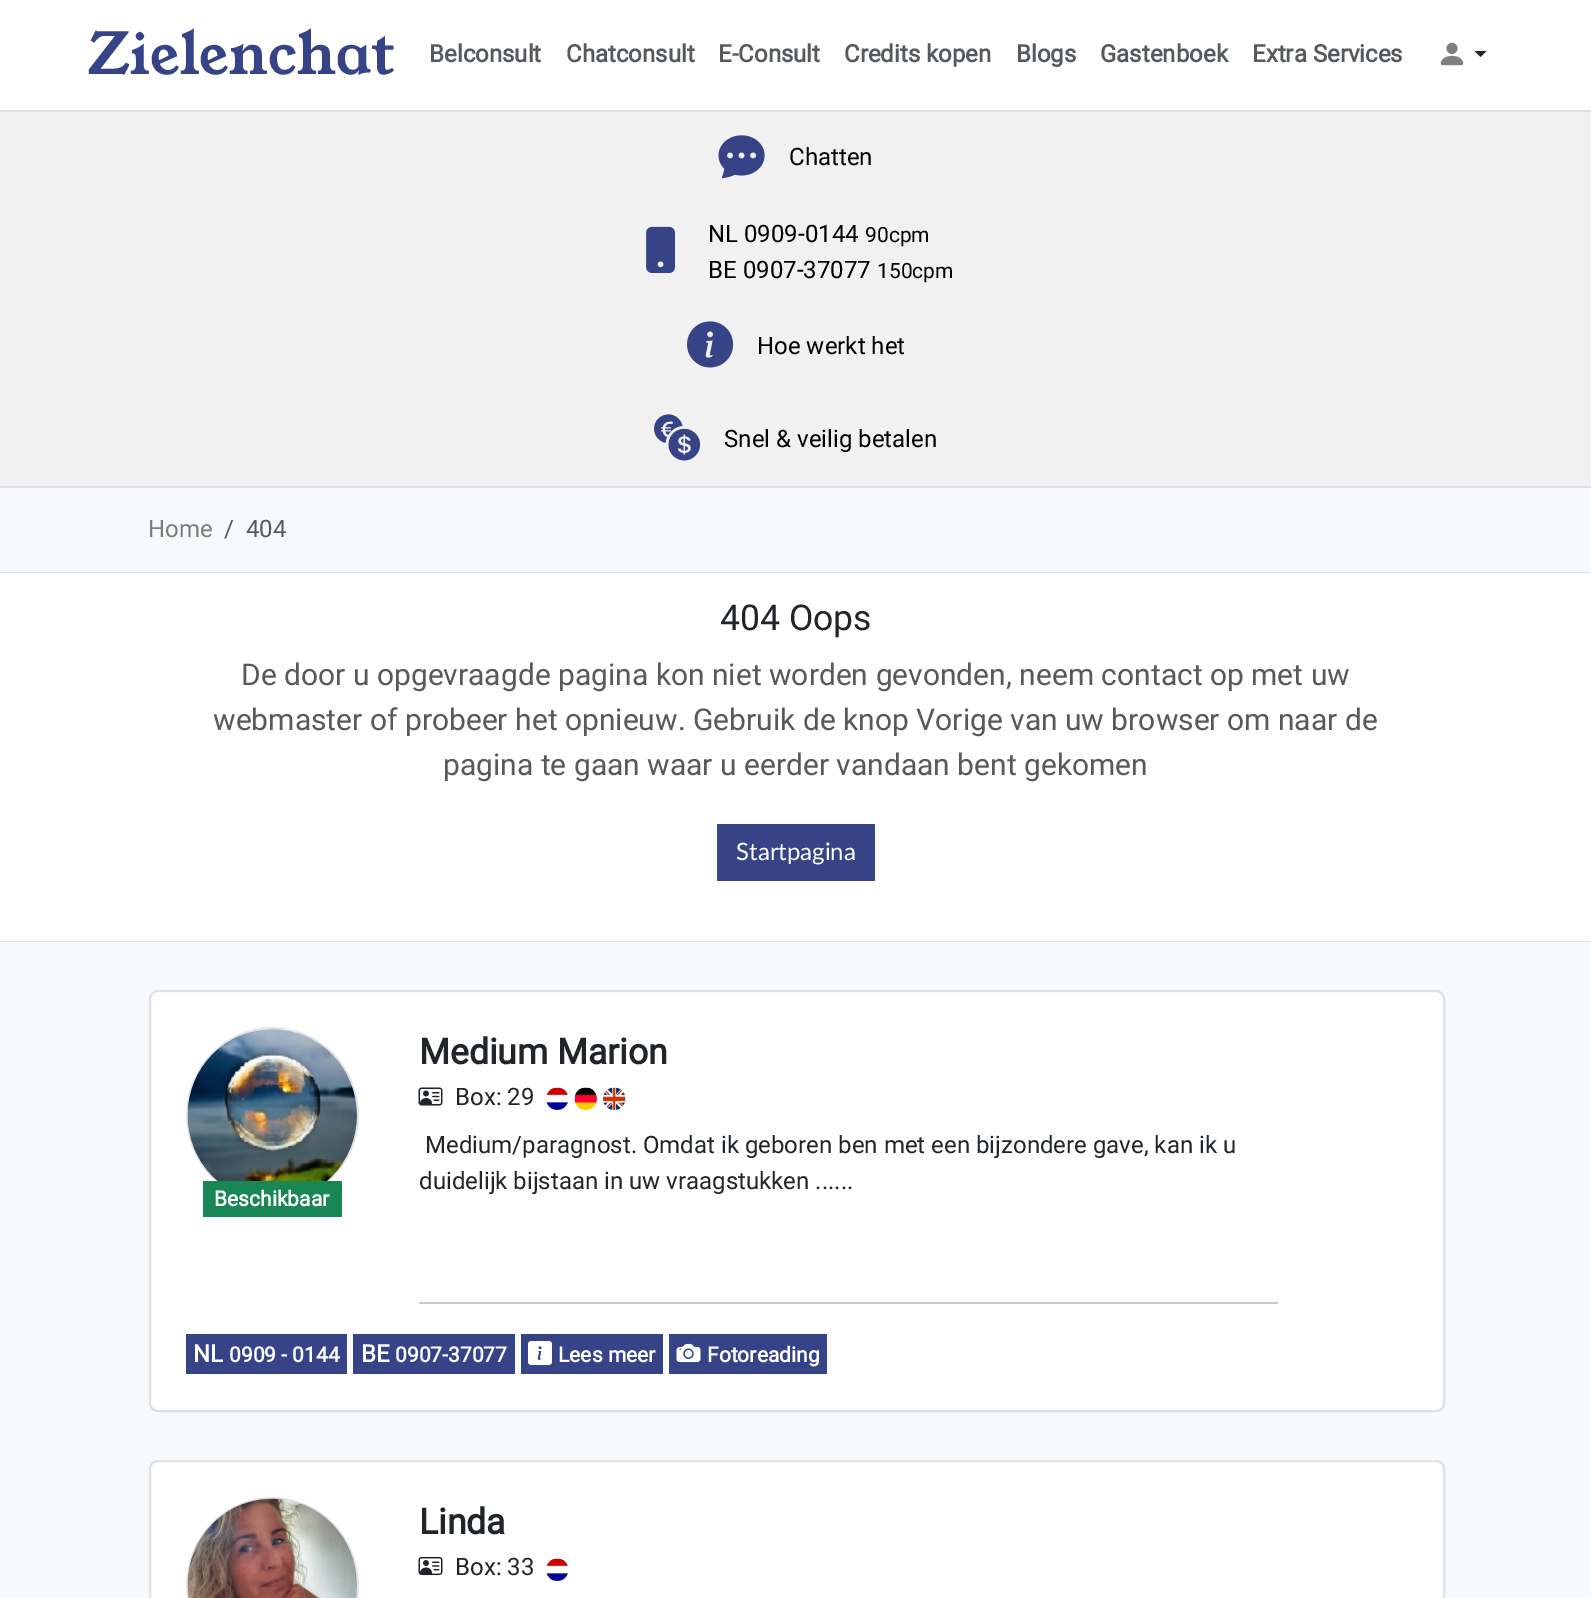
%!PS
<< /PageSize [1591 1598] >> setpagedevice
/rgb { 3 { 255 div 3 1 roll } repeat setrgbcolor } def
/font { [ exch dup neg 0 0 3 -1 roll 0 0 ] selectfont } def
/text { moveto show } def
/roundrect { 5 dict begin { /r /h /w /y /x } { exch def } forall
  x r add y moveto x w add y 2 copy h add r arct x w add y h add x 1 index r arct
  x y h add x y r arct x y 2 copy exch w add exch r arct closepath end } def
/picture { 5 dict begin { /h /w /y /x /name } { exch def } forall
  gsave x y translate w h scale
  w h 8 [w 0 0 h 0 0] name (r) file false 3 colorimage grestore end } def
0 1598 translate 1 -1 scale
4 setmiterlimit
255 255 255 rgb
0 0 1591 1598 rectfill
(img_01.rgb) 1440 42 24 24 picture
33 37 41 rgb
1474.5 51 moveto 12 0 rlineto -6 6 rlineto closepath fill
241 241 241 rgb
0 112 1591 374 rectfill
222 226 230 rgb
0 110 1591 2 rectfill
0 486 1591 2 rectfill
(img_02.rgb) 718 135 47 44 picture
(img_03.rgb) 646 226 29 47 picture
(img_04.rgb) 687 321 47 47 picture
(img_05.rgb) 654 414 47 47 picture
248 249 250 rgb
0 488 1591 84 rectfill
222 226 230 rgb
0 572 1591 1 rectfill
0 941 1591 1 rectfill
54 67 135 rgb
717 824 158 57 rectfill
248 249 250 rgb
0 942 1591 656 rectfill
255 255 255 rgb
150 991 1294 420 8 roundrect gsave fill grestore
222 226 230 rgb
2 setlinewidth
stroke
(img_06.rgb) 418 1087 25 19 picture
(img_07.rgb) 546 1087 22 23 picture
(img_08.rgb) 574 1087 23 23 picture
(img_09.rgb) 603 1087 23 23 picture
200 201 202 rgb
419 1302 859 2 rectfill
222 226 230 rgb
1.5 setlinewidth
272 1028 moveto 47.5 0 86 39 86 87 rcurveto 0 48.5 -38.5 87 -86 87 rcurveto -47 0 -85 -38.5 -85 -87 rcurveto 0 -48 38 -87 85 -87 rcurveto closepath stroke
(img_10.rgb) 187 1029 170 152 picture
25 135 84 rgb
203 1181 139 36 rectfill
54 67 135 rgb
186 1334 161 40 rectfill
353 1334 162 40 rectfill
521 1334 142 40 rectfill
(img_11.rgb) 528 1341 24 24 picture
669 1334 158 40 rectfill
(img_12.rgb) 676 1343 25 20 picture
255 255 255 rgb
150 1461 1294 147 8 roundrect gsave fill grestore
222 226 230 rgb
2 setlinewidth
stroke
1.5 setlinewidth
272 1498 moveto 47.5 0 86 39 86 87.5 rcurveto 0 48.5 -38.5 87.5 -86 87.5 rcurveto -47 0 -85 -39 -85 -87.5 rcurveto 0 -48.5 38 -87.5 85 -87.5 rcurveto closepath stroke
(img_13.rgb) 187 1498 170 100 picture
(img_14.rgb) 418 1556 25 20 picture
(img_07.rgb) 546 1558 22 23 picture
/YoungSerif-Regular 57 font
54 67 135 rgb
(Zielenchat) 88 74 text
/Roboto-Bold 24 font
87 90 93 rgb
(Belconsult) 429 62 text
(Chatconsult) 566 62 text
(E-Consult) 718 62 text
(Credits kopen) 844 62 text
(Blogs) 1016 62 text
(Gastenboek) 1100 62 text
(Extra Services) 1252 62 text
/Roboto-Regular 24 font
0 0 0 rgb
(Chatten) 789 165 text
(NL 0909-0144) 708 242 text
/Roboto-Regular 21 font
(90cpm) 865 242 text
/Roboto-Regular 24 font
(BE 0907-37077) 708 278 text
/Roboto-Regular 21 font
(150cpm) 877 278 text
/Roboto-Regular 24 font
(Hoe werkt het) 757 354 text
(Snel & veilig betalen) 724 447 text
124 125 125 rgb
(Home) 148 537 text
87 90 93 rgb
(/) 224 537 text
(404) 246 537 text
/Roboto-Regular 35.5 font
33 37 41 rgb
(404 Oops) 720 630 text
/Roboto-Regular 30 font
87 90 93 rgb
(De door u opgevraagde pagina kon niet worden gevonden, neem contact op met uw) 241 685 text
(webmaster of probeer het opnieuw. Gebruik de knop Vorige van uw browser om naar de) 213 730 text
(pagina te gaan waar u eerder vandaan bent gekomen) 443 775 text
/Lato-Regular 24 font
255 255 255 rgb
(Startpagina) 736 860 text
/Roboto-Bold 35.5 font
33 37 41 rgb
(Medium Marion) 419 1064 text
/Roboto-Regular 24 font
(Box: 29) 455 1105 text
(Medium/paragnost. Omdat ik geboren ben met een bijzondere gave, kan ik u) 425 1153 text
(duidelijk bijstaan in uw vraagstukken ......) 419 1189 text
/Roboto-Bold 21 font
255 255 255 rgb
(Beschikbaar) 214 1206 text
/Roboto-Bold 24 font
(NL) 193 1362 text
/Roboto-Bold 21 font
(0909 - 0144) 229 1362 text
/Roboto-Bold 24 font
(BE) 361 1362 text
/Roboto-Bold 21 font
(0907-37077) 395 1362 text
(Lees meer) 558 1362 text
(Fotoreading) 707 1362 text
/Roboto-Bold 35.5 font
33 37 41 rgb
(Linda) 419 1534 text
/Roboto-Regular 24 font
(Box: 33) 455 1575 text
showpage
